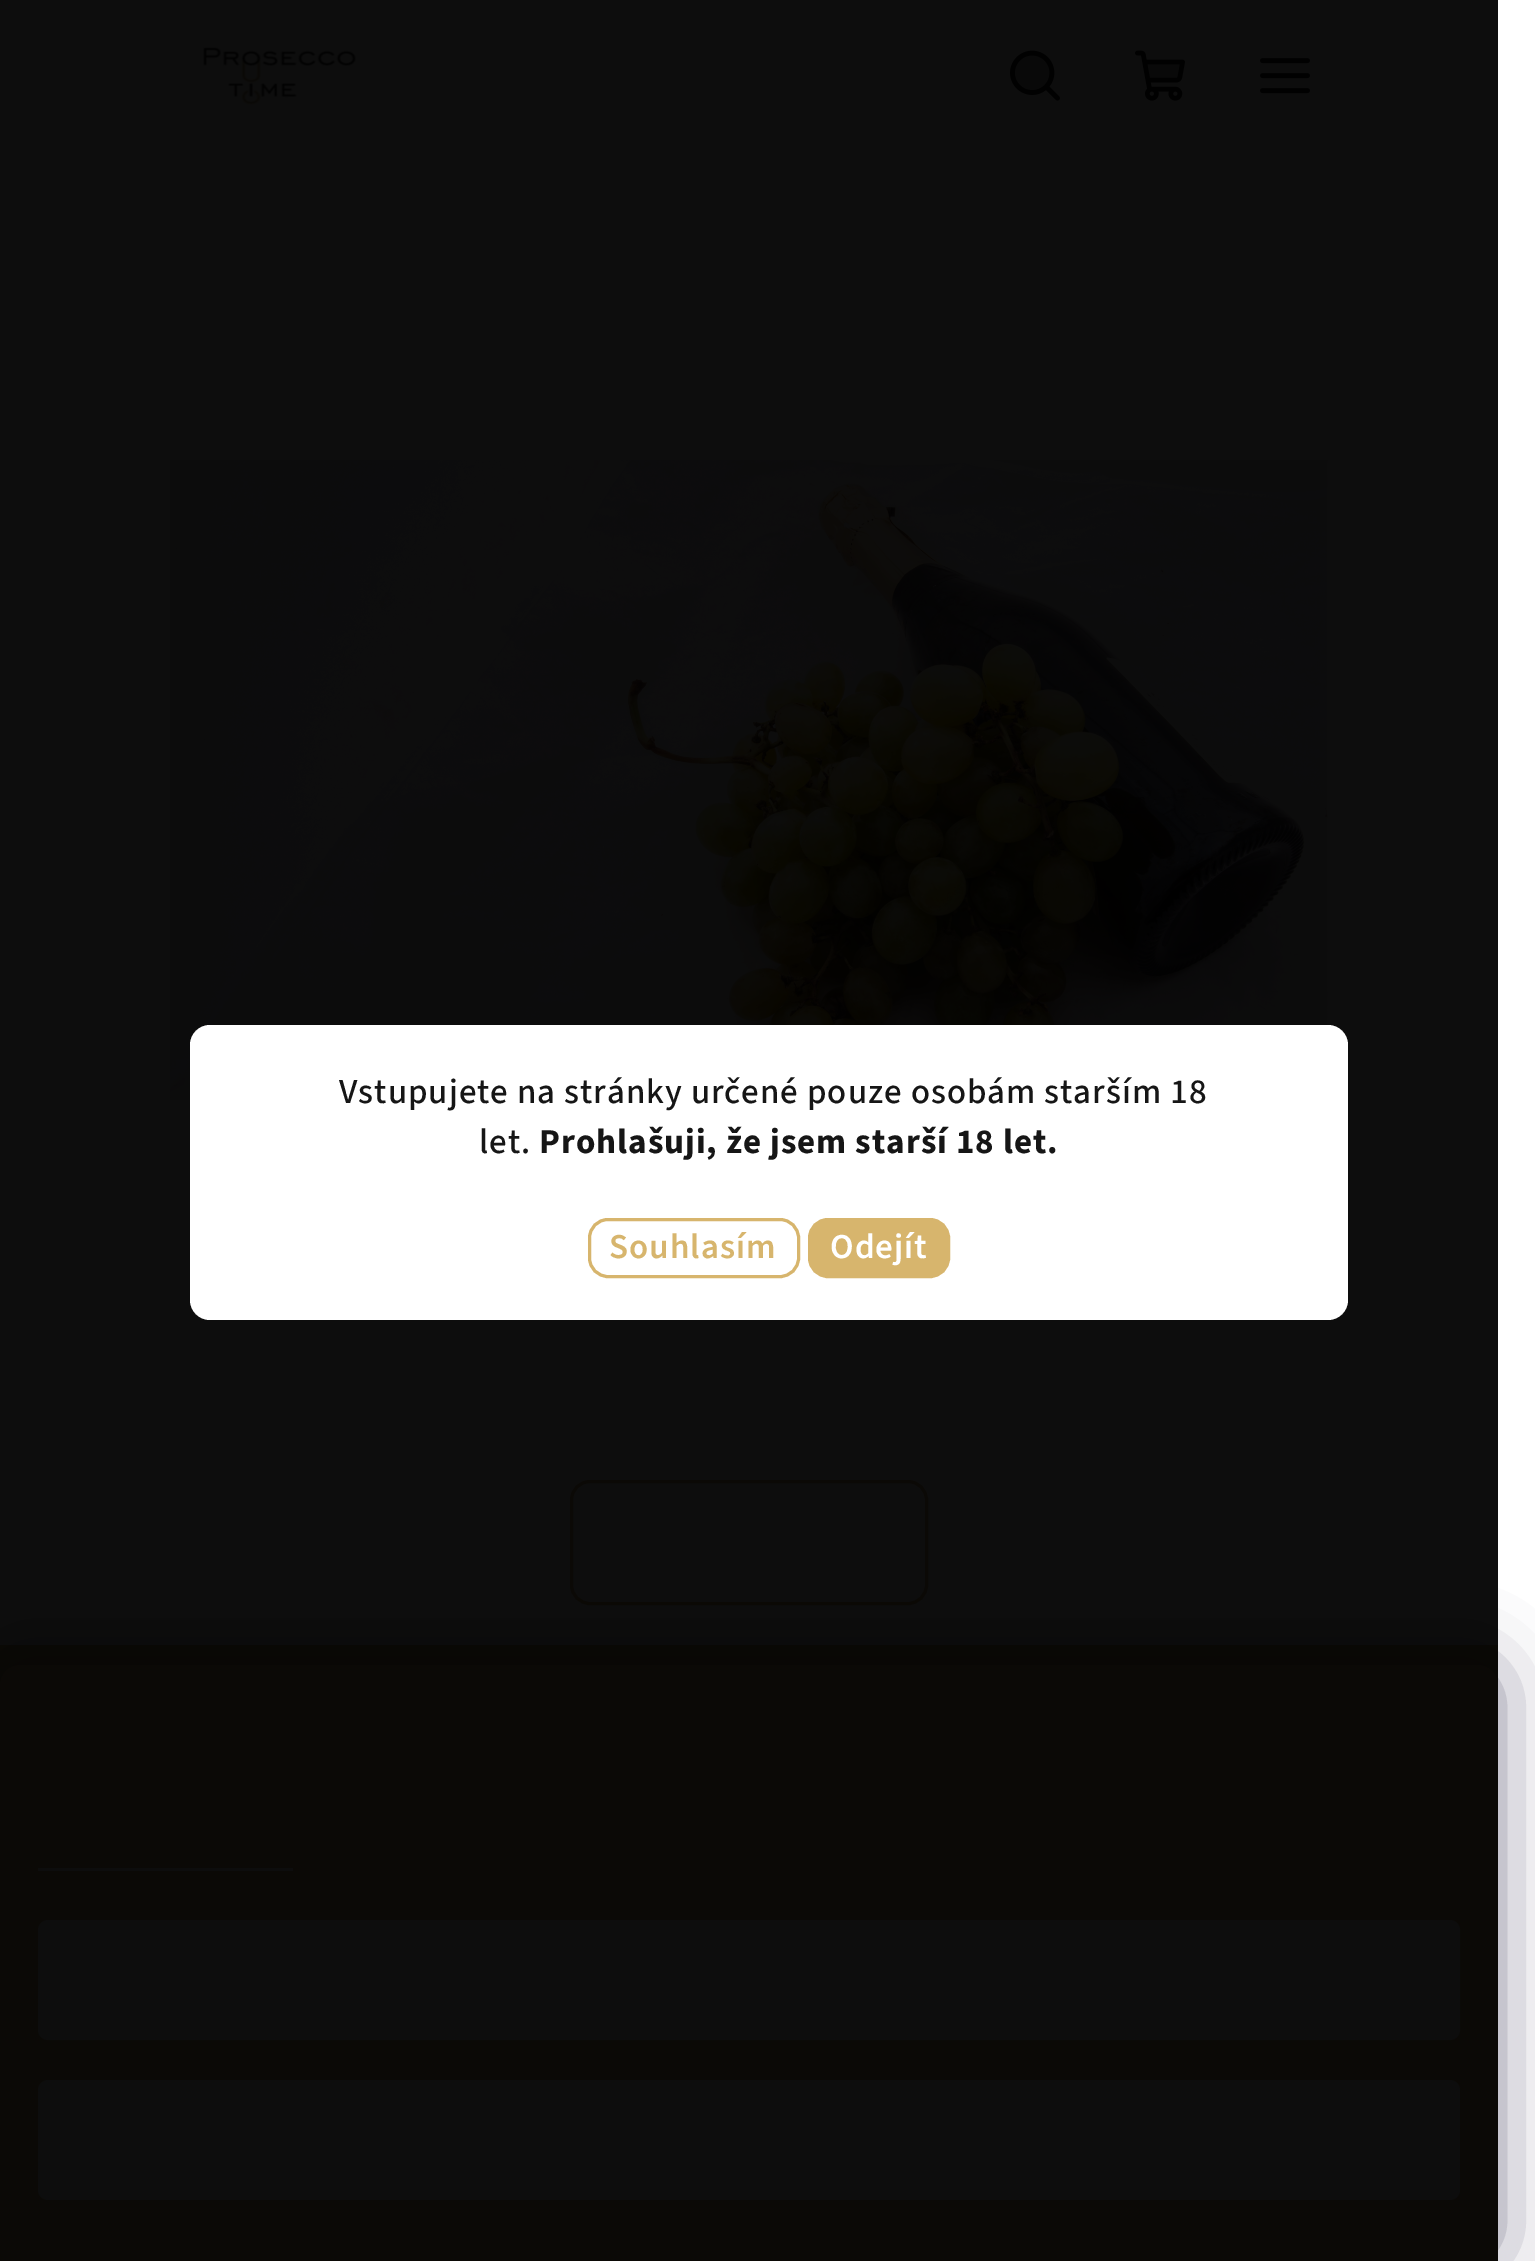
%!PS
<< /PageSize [1535 2261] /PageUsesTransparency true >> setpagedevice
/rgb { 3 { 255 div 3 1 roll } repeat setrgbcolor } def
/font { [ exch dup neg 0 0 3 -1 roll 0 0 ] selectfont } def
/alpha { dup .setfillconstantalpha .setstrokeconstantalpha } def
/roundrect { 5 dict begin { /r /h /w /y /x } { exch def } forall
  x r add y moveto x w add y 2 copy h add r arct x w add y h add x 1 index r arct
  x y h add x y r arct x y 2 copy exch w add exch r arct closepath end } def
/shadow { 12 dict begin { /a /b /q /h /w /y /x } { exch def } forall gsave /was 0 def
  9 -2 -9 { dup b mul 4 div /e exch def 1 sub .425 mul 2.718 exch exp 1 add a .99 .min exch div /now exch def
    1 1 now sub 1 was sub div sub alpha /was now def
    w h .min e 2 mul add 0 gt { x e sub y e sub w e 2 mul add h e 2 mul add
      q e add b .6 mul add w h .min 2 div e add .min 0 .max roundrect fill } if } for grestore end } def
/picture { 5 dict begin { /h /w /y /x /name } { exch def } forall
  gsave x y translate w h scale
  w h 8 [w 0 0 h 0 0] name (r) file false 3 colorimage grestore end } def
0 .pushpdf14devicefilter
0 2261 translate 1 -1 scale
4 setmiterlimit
255 255 255 rgb
0 0 1535 2261 rectfill
(img_01.rgb) 203 47 153 59 picture
(img_02.rgb) 1010 50 50 51 picture
0.3 alpha
22 22 22 rgb
1032 92.5 moveto 19 0 27 -24 12 -35.5 rcurveto -3.5 -2.5 -7.5 -4 -12 -4 rcurveto -4 0 -8 1.5 -11.5 4 rcurveto -15 11.5 -7 35.5 11.5 35.5 rcurveto closepath fill
1 alpha
(img_03.rgb) 1135 50 50 51 picture
0.3 alpha
1148 80 moveto 23.5 0 rlineto 6.5 0 7.5 1 9 -5.5 rcurveto 2 -12.5 rlineto -38 0 rlineto closepath fill
1 alpha
(img_04.rgb) 1260 58 50 36 picture
(img_05.rgb) 170 460 1158 640 picture
215 181 109 rgb
3 setlinewidth
571.5 1481.5 355 122 18.5 roundrect stroke
0 1645 1498 40 rectfill
27 25 57 rgb
0 1665 1498 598 20 37.5 0.5 shadow
215 181 109 rgb
20 1665 moveto 1458 0 rlineto 11 0 20 9 20 20 rcurveto 0 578 rlineto -1498 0 rlineto 0 -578 rlineto 0 -11 9 -20 20 -20 rcurveto closepath fill
248 250 251 rgb
38 1868 255 3 rectfill
255 255 255 rgb
40.5 1922.5 1417 115 7.5 roundrect gsave fill grestore
248 250 251 rgb
5 setlinewidth
stroke
38 2080 1422 120 10 roundrect fill
0.95 alpha
0 0 0 rgb
0 0 1498 2261 rectfill
1 alpha
255 255 255 rgb
190 1025 1158 295 20 roundrect fill
215 181 109 rgb
3 setlinewidth
589.5 1219.5 209 57 18.5 roundrect stroke
809.5 1219.5 139 57 18.5 roundrect gsave fill grestore
stroke
/SourceSans3-Medium 35 font
22 22 22 rgb
339 1103 moveto 1 0 (Vstupujete na stránky určené pouze osobám starším 18) ashow
479 1153 moveto 1 0 (let.) ashow
/SourceSans3-Bold 35 font
539 1153 moveto 1 0 (Prohlašuji, že jsem starší 18 let.) ashow
/SourceSans3-SemiBold 35 font
215 181 109 rgb
609 1258 moveto 1 0 (Souhlasím) ashow
255 255 255 rgb
830 1258 moveto 1 0 (Odejít) ashow
.poppdf14devicefilter showpage
